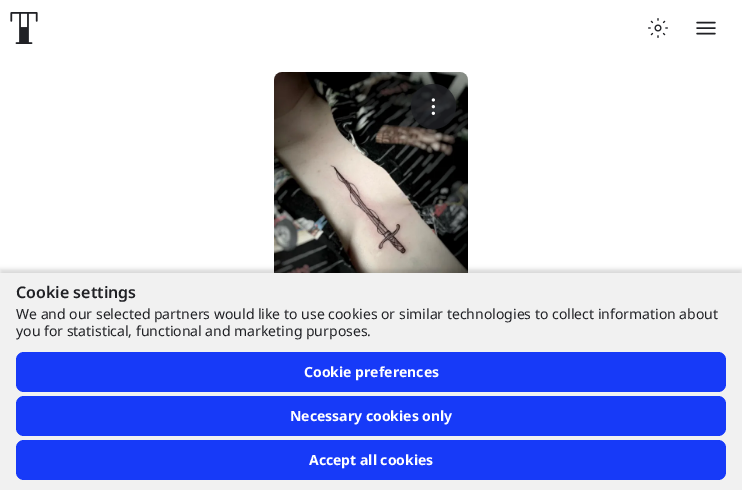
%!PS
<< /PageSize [742 490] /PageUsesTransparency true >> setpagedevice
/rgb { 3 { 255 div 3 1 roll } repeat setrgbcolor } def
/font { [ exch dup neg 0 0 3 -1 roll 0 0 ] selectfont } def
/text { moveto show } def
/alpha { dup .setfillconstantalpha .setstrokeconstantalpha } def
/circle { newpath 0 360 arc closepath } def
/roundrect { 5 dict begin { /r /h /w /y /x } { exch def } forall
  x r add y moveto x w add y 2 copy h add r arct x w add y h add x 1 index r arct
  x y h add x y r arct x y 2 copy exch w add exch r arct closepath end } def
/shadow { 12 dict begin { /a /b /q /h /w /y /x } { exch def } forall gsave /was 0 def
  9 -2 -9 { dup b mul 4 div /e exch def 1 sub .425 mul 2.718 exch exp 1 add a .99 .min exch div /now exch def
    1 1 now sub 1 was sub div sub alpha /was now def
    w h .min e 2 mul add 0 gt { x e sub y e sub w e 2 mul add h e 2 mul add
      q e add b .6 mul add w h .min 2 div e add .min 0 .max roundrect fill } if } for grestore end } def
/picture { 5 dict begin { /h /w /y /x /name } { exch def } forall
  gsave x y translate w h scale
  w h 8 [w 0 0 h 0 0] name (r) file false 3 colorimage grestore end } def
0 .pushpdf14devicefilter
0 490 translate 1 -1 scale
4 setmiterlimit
255 255 255 rgb
0 0 742 490 rectfill
(img_01.rgb) 10 12 28 32 picture
(img_02.rgb) 648 18 20 20 picture
32 33 37 rgb
1.4 setlinewidth
1 setlinecap
1 setlinejoin
697 33.5 moveto 18 0 rlineto 697 28 moveto 18 0 rlineto 697 22.5 moveto 18 0 rlineto stroke
(img_03.rgb) 274 72 194 201 picture
0.8 alpha
433.5 106.5 22.5 circle fill
1 alpha
(img_04.rgb) 431 98 4 17 picture
0 0 0 rgb
0 273 742 217 0 2 0.06 shadow
0 269 742 217 0 2 0.12 shadow
241 241 241 rgb
0 273 742 217 rectfill
23 58 248 rgb
16 352 710 40 8 roundrect fill
16 396 710 40 8 roundrect fill
16 440 710 40 8 roundrect fill
/NotoSans-SemiBold 16 font
32 33 37 rgb
(Cookie settings) 16 298 text
/NotoSans-Regular 14 font
(We and our selected partners would like to use cookies or similar technologies to collect information about) 16 319 text
(you for statistical, functional and marketing purposes.) 16 336 text
/NotoSans-Bold 14 font
255 255 255 rgb
(Cookie preferences) 304 377 text
(Necessary cookies only) 290 421 text
(Accept all cookies) 309 465 text
.poppdf14devicefilter showpage
